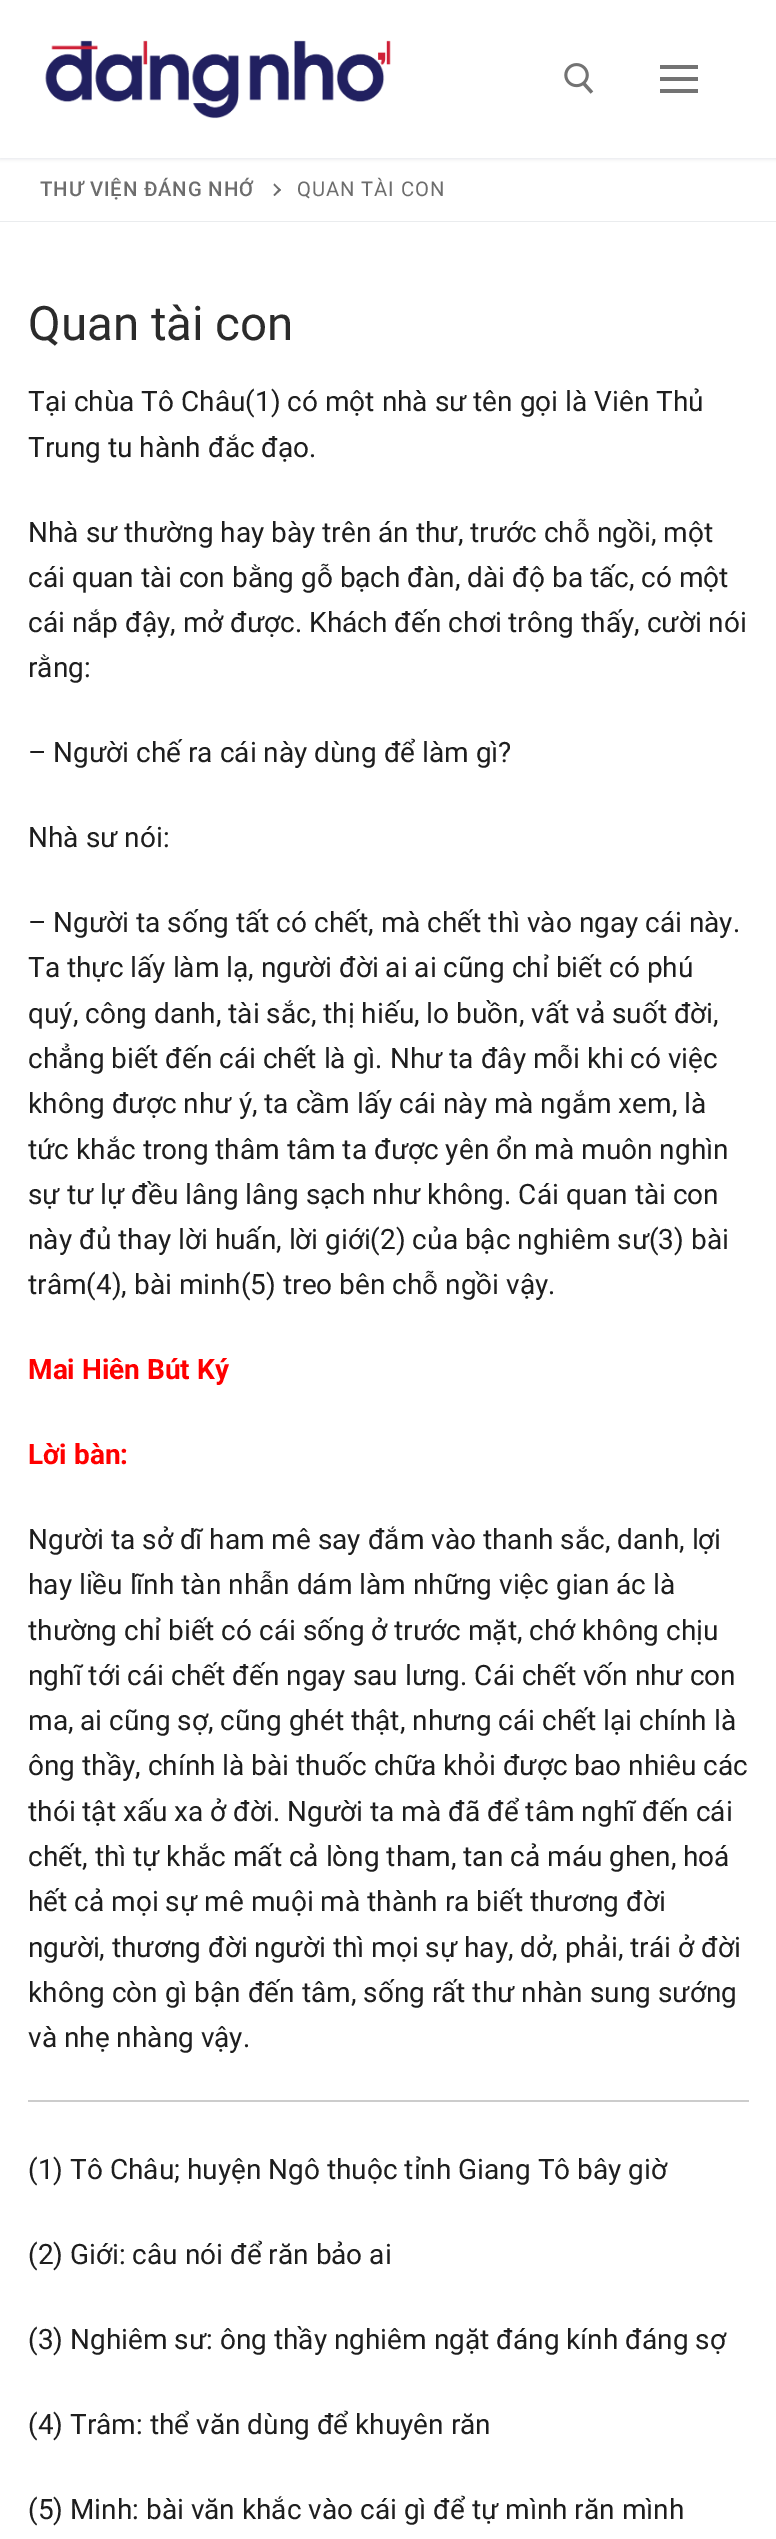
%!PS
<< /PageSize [776 2539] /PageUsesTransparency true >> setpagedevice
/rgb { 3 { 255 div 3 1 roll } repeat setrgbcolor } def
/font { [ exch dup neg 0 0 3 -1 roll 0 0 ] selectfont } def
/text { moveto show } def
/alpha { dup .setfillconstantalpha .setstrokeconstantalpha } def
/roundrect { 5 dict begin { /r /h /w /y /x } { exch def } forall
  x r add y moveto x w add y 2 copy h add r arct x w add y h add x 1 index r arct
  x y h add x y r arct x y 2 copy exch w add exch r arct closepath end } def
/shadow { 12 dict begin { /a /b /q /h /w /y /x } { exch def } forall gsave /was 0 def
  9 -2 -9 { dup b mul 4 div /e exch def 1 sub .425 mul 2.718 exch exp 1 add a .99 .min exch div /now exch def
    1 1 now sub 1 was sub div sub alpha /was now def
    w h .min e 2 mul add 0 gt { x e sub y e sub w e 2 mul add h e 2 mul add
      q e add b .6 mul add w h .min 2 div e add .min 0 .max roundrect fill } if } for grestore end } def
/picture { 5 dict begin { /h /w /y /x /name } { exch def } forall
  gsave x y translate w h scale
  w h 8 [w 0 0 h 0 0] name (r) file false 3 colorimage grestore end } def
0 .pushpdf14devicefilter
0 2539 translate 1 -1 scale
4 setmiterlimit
255 255 255 rgb
0 0 776 2539 rectfill
225 229 234 rgb
0 2 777 157 0 2 1 shadow
255 255 255 rgb
0 0 776 158 rectfill
(img_01.rgb) 45 40 346 79 picture
(img_02.rgb) 564 63 30 31 picture
115 115 115 rgb
660 77 38 4 rectfill
660 65 38 4 rectfill
660 89 38 4 rectfill
234 236 238 rgb
0 221 776 1 rectfill
109 109 109 rgb
281 190 moveto -6.5 6 rlineto -1 -1 rlineto 6 -6.5 rlineto closepath fill
281 190 moveto -1.5 1 rlineto -6 -6 rlineto 1 -1.5 rlineto closepath fill
204 204 204 rgb
28 2100 721 2 rectfill
/Roboto-Medium 20.25 font
109 109 109 rgb
40 196 moveto 0.9 0 (THƯ VIỆN ĐÁNG NHỚ) ashow
/Roboto-Regular 20.25 font
297 196 moveto 0.9 0 (QUAN TÀI CON) ashow
/Roboto-Regular 47.5 font
43 43 43 rgb
(Quan tài con) 28 340 text
/Roboto-Regular 28 font
30 30 30 rgb
(Tại chùa Tô Châu\(1\) có một nhà sư tên gọi là Viên Thủ) 28 411 text
(Trung tu hành đắc đạo.) 28 457 text
(Nhà sư thường hay bày trên án thư, trước chỗ ngồi, một) 28 542 text
(cái quan tài con bằng gỗ bạch đàn, dài độ ba tấc, có một) 28 587 text
(cái nắp đậy, mở được. Khách đến chơi trông thấy, cười nói) 28 632 text
(rằng:) 28 677 text
(– Người chế ra cái này dùng để làm gì?) 28 762 text
(Nhà sư nói:) 28 847 text
(– Người ta sống tất có chết, mà chết thì vào ngay cái này.) 28 932 text
(Ta thực lấy làm lạ, người đời ai ai cũng chỉ biết có phú) 28 977 text
(quý, công danh, tài sắc, thị hiếu, lo buồn, vất vả suốt đời,) 28 1023 text
(chẳng biết đến cái chết là gì. Như ta đây mỗi khi có việc) 28 1068 text
(không được như ý, ta cầm lấy cái này mà ngắm xem, là) 28 1113 text
(tức khắc trong thâm tâm ta được yên ổn mà muôn nghìn) 28 1159 text
(sự tư lự đều lâng lâng sạch như không. Cái quan tài con) 28 1204 text
(này đủ thay lời huấn, lời giới\(2\) của bậc nghiêm sư\(3\) bài) 28 1249 text
(trâm\(4\), bài minh\(5\) treo bên chỗ ngồi vậy.) 28 1294 text
/Roboto-Bold 28 font
255 0 0 rgb
(Mai Hiên Bút Ký) 28 1379 text
(Lời bàn:) 28 1464 text
/Roboto-Regular 28 font
30 30 30 rgb
(Người ta sở dĩ ham mê say đắm vào thanh sắc, danh, lợi) 28 1549 text
(hay liều lĩnh tàn nhẫn dám làm những việc gian ác là) 28 1594 text
(thường chỉ biết có cái sống ở trước mặt, chớ không chịu) 28 1640 text
(nghĩ tới cái chết đến ngay sau lưng. Cái chết vốn như con) 28 1685 text
(ma, ai cũng sợ, cũng ghét thật, nhưng cái chết lại chính là) 28 1730 text
(ông thầy, chính là bài thuốc chữa khỏi được bao nhiêu các) 28 1775 text
(thói tật xấu xa ở đời. Người ta mà đã để tâm nghĩ đến cái) 28 1821 text
(chết, thì tự khắc mất cả lòng tham, tan cả máu ghen, hoá) 28 1866 text
(hết cả mọi sự mê muội mà thành ra biết thương đời) 28 1911 text
(người, thương đời người thì mọi sự hay, dở, phải, trái ở đời) 28 1957 text
(không còn gì bận đến tâm, sống rất thư nhàn sung sướng) 28 2002 text
(và nhẹ nhàng vậy.) 28 2047 text
(\(1\) Tô Châu; huyện Ngô thuộc tỉnh Giang Tô bây giờ) 28 2179 text
(\(2\) Giới: câu nói để răn bảo ai) 28 2264 text
(\(3\) Nghiêm sư: ông thầy nghiêm ngặt đáng kính đáng sợ) 28 2349 text
(\(4\) Trâm: thể văn dùng để khuyên răn) 28 2434 text
(\(5\) Minh: bài văn khắc vào cái gì để tự mình răn mình) 28 2519 text
.poppdf14devicefilter showpage
